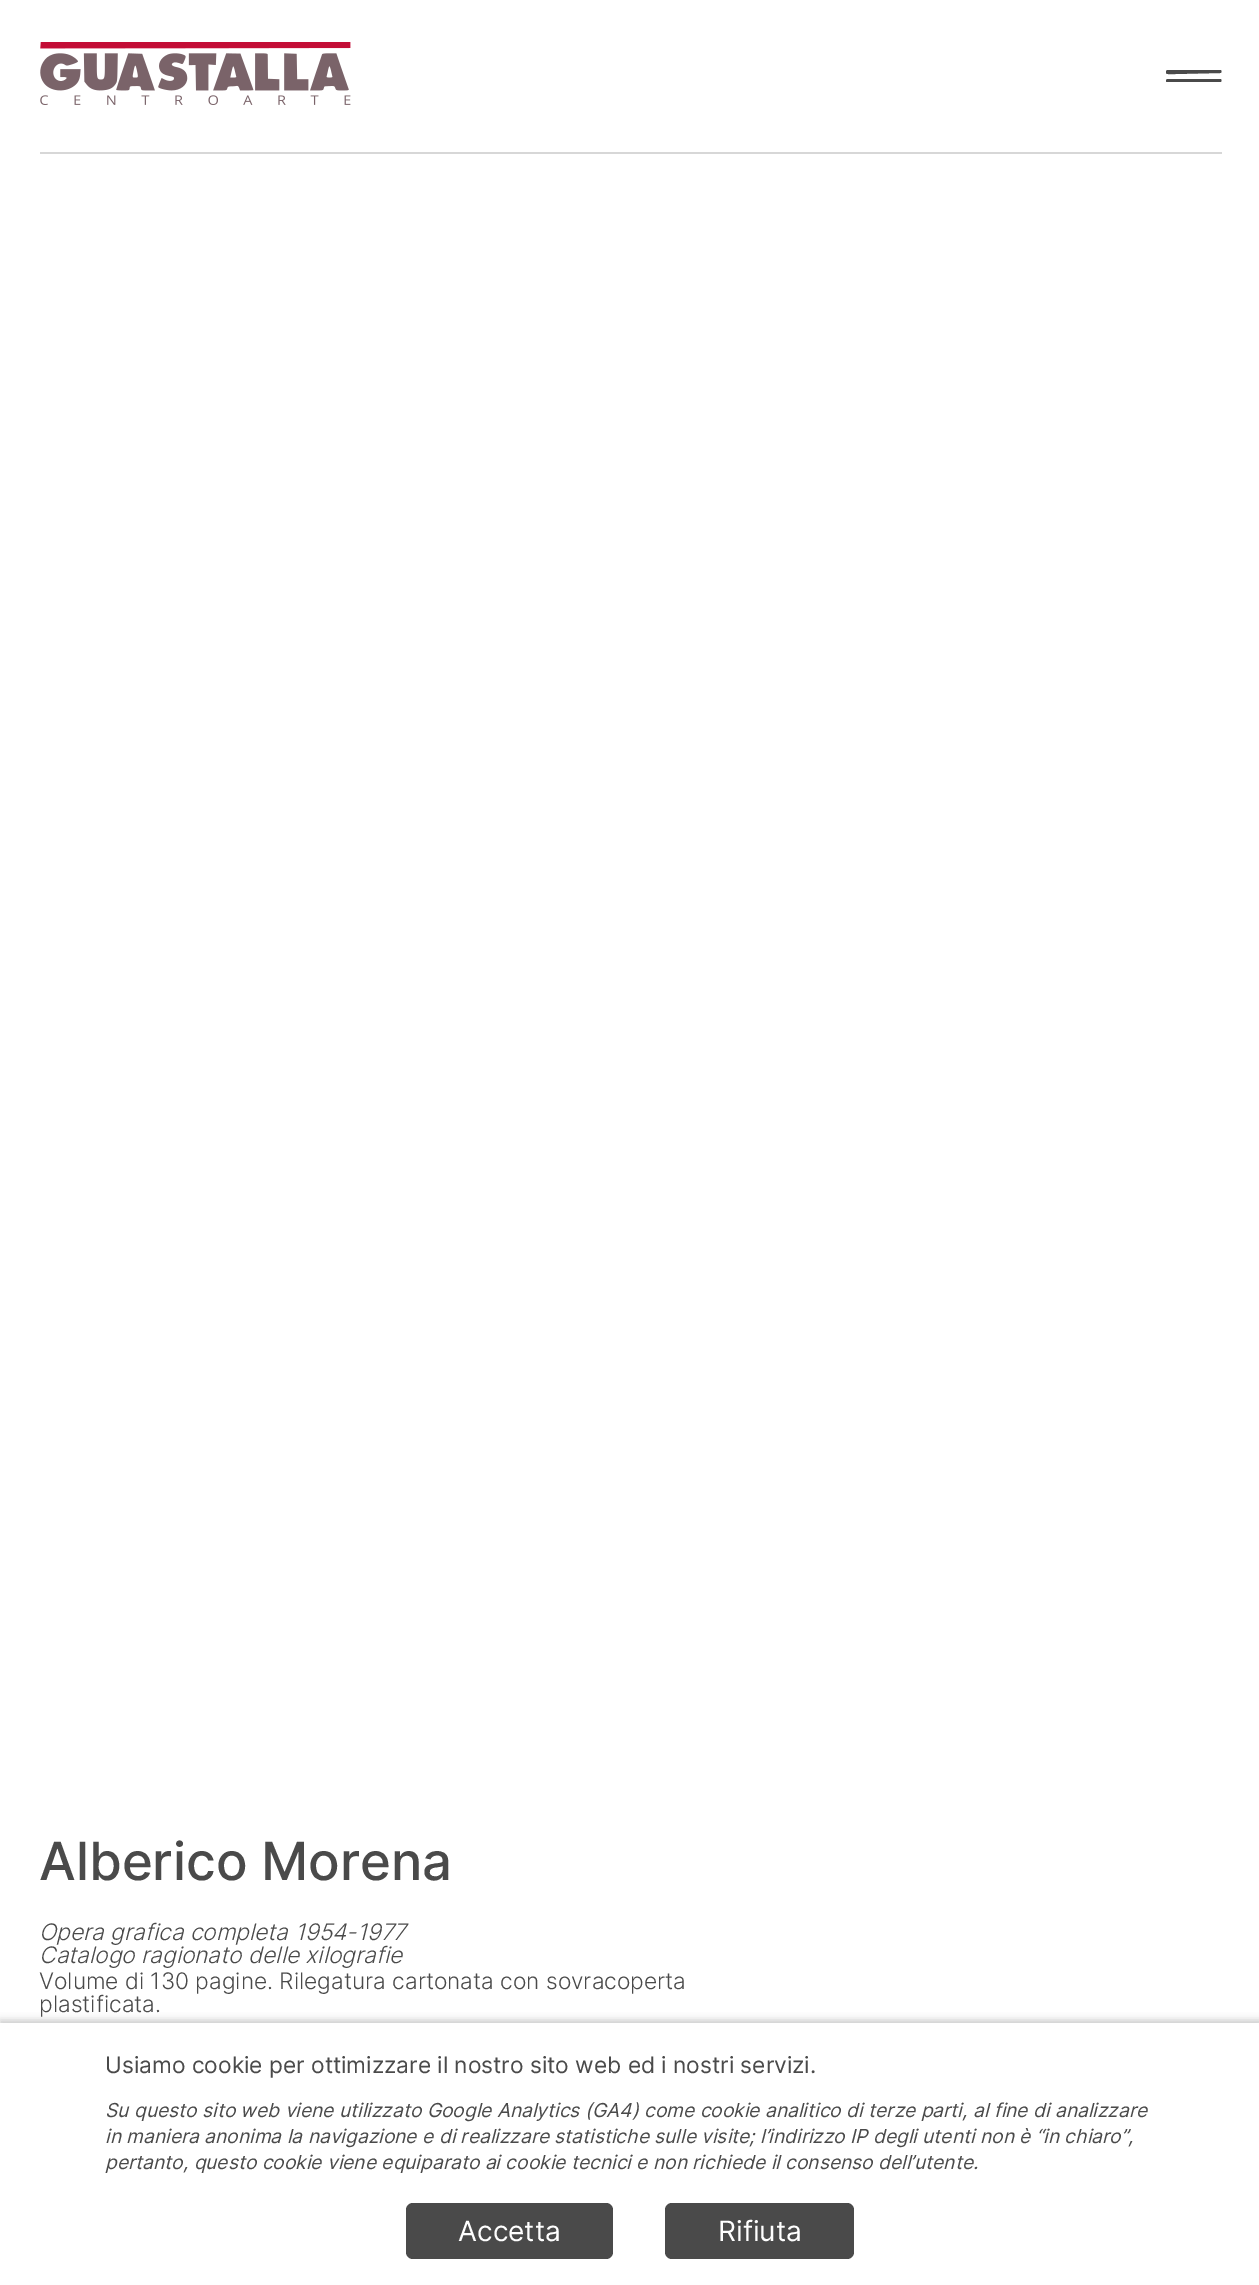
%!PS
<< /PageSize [1259 2285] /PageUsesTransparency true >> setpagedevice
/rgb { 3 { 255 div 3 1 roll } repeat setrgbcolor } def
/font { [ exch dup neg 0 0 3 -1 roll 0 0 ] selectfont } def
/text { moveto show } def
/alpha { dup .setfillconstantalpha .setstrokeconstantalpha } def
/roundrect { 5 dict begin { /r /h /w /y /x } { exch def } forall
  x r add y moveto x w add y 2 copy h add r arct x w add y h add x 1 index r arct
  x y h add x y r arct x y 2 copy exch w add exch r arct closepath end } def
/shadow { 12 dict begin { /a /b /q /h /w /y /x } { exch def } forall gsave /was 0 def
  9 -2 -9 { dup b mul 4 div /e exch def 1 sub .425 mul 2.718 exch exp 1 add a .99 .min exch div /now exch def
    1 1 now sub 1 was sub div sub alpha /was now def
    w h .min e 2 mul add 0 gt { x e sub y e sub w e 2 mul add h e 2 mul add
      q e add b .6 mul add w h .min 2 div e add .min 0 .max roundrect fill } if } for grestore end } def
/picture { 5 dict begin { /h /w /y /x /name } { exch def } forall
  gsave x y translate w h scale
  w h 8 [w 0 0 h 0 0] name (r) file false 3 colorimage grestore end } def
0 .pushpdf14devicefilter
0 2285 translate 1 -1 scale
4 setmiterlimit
255 255 255 rgb
0 0 1259 2285 rectfill
(img_01.rgb) 40 42 311 63 picture
gsave
1166 70 56 12 rectclip
74 74 74 rgb
1220 79 moveto 2 0 2 3 0 3 rcurveto -44 0 rlineto -6 0 -12 1 -10 -2 rcurveto 1 -1 rlineto closepath 1220 70 moveto 2 0 2 3 0 3 rcurveto -44 1 rlineto -6 0 -12 1 -10 -3 rcurveto 1 -1 rlineto closepath fill
grestore
215 215 215 rgb
40 152 1182 2 rectfill
0 0 0 rgb
0 2020 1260 262 0 3.5 0.2 shadow
255 255 255 rgb
0 2023 1259 262 rectfill
74 74 74 rgb
406 2203 207 56 7 roundrect fill
665 2203 189 56 7 roundrect fill
/Inter-Medium 52.5 font
(Alberico Morena) 39 1880 text
/Inter-LightItalic 22.75 font
(Opera grafica completa 1954-1977) 39 1940 text
(Catalogo ragionato delle xilografie) 39 1963 text
/Inter-Light 22.75 font
(Volume di 130 pagine. Rilegatura cartonata con sovracoperta) 39 1989 text
(plastificata.) 39 2012 text
/Inter-Regular 22.75 font
(Usiamo cookie per ottimizzare il nostro sito web ed i nostri servizi.) 105 2073 text
/Inter-Italic 19.25 font
(Su questo sito web viene utilizzato Google Analytics \(GA4\) come cookie analitico di terze parti, al fine di analizzare) 105 2117 text
(in maniera anonima la navigazione e di realizzare statistiche sulle visite; l’indirizzo IP degli utenti non è “in chiaro”,) 105 2143 text
(pertanto, questo cookie viene equiparato ai cookie tecnici e non richiede il consenso dell’utente.) 105 2169 text
/Inter-Regular 28 font
255 255 255 rgb
(Accetta) 458 2241 text
(Rifiuta) 718 2241 text
.poppdf14devicefilter showpage
